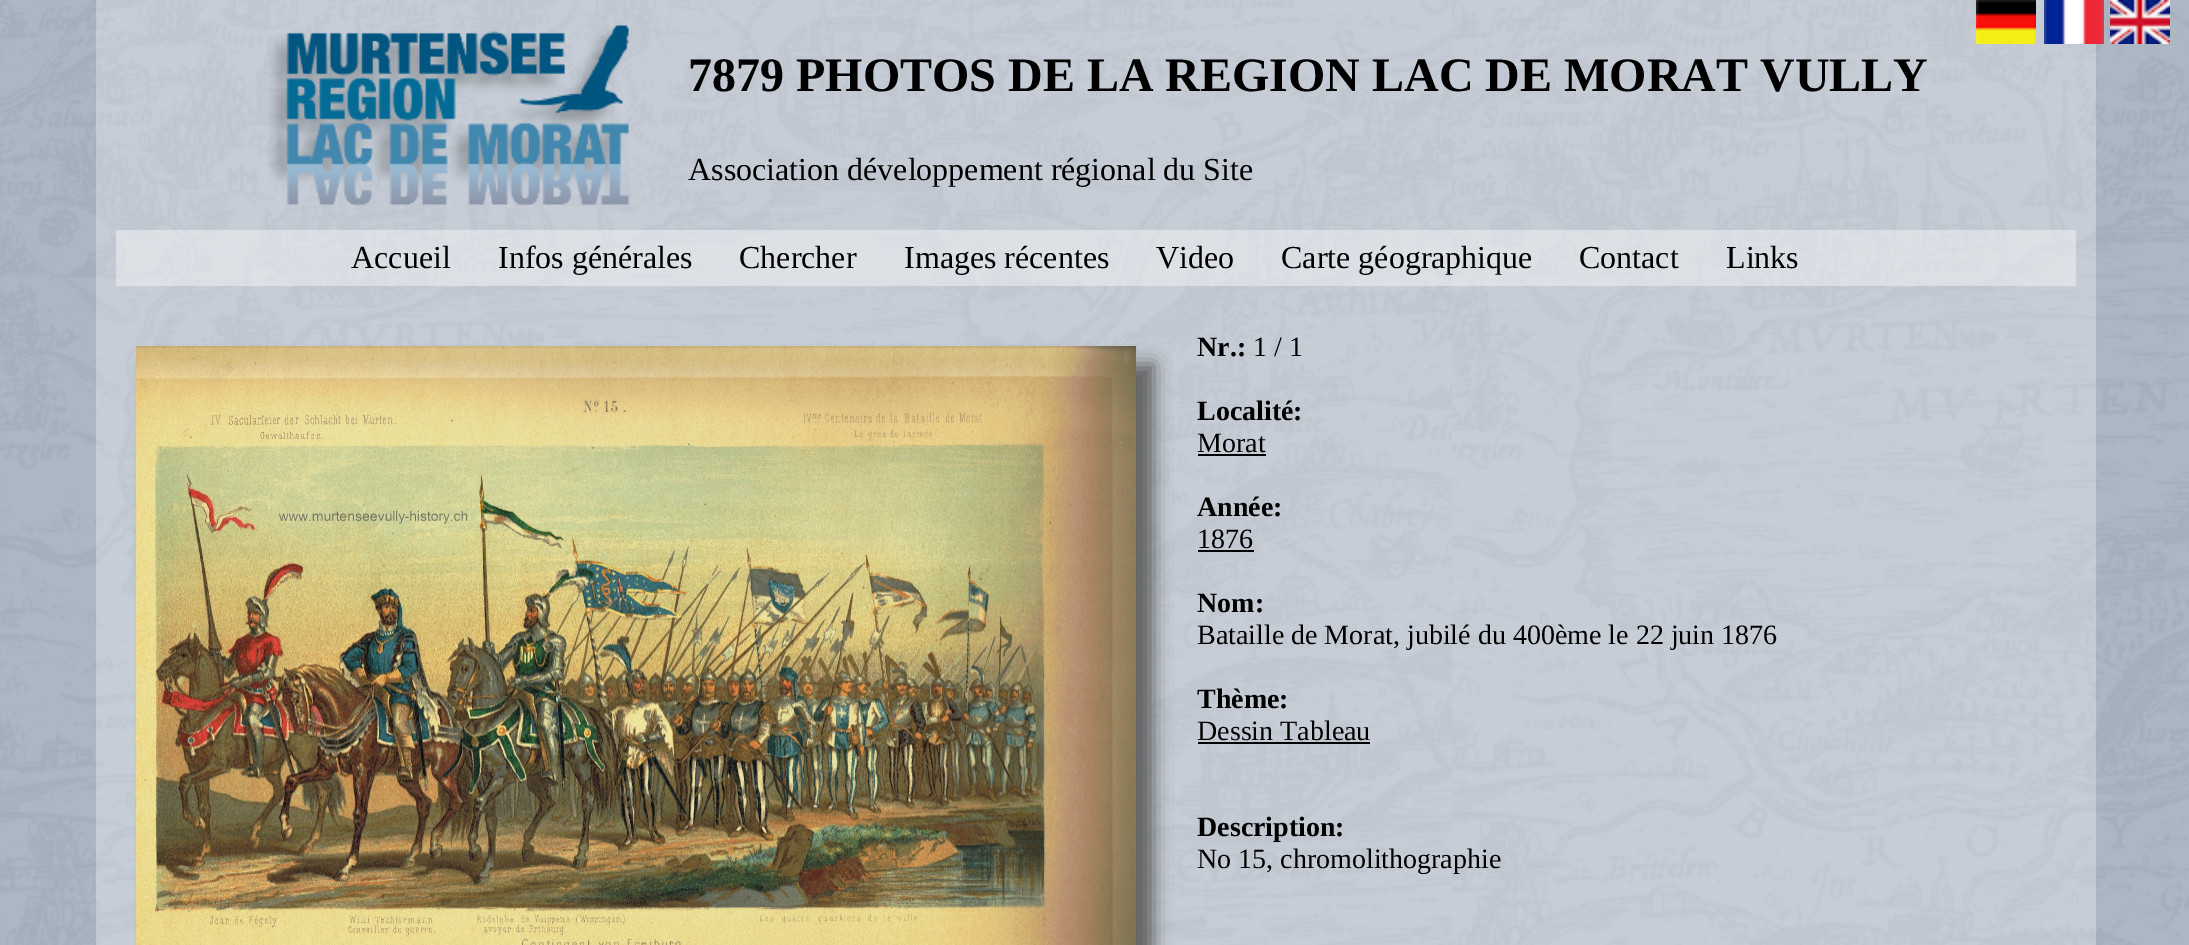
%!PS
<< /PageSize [2189 945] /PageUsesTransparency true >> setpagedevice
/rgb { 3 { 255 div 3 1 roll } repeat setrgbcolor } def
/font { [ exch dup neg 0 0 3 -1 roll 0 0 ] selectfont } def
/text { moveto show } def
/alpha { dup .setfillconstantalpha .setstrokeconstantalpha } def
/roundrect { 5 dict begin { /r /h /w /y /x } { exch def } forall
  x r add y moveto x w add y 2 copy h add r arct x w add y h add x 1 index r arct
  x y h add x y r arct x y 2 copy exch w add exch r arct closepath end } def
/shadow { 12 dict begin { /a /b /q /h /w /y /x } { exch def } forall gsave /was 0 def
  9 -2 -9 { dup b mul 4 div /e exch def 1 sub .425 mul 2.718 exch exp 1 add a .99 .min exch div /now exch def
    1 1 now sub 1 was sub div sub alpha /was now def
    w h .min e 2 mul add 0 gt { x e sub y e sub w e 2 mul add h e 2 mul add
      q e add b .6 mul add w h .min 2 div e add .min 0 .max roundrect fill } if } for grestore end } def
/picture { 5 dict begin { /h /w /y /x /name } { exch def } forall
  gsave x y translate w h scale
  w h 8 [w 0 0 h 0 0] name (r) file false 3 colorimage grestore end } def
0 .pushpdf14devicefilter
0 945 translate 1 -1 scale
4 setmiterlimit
255 255 255 rgb
0 0 2189 945 rectfill
(img_01.rgb) 0 0 2189 945 picture
(img_02.rgb) 268 25 361 181 picture
(img_03.rgb) 1976 0 60 44 picture
(img_04.rgb) 2044 0 60 44 picture
(img_05.rgb) 2110 0 60 44 picture
0.4 alpha
116 230 1960 56 rectfill
1 alpha
96 96 96 rgb
154 364 1000 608 0 9 1 shadow
(img_06.rgb) 136 346 1000 599 picture
0 0 0 rgb
1198 454 68 2 rectfill
1198 550 56 2 rectfill
1198 742 172 2 rectfill
/LiberationSerif-Bold 48 font
(7879 PHOTOS DE LA REGION LAC DE MORAT VULLY) 688 91 text
/LiberationSerif-Regular 32 font
(Association développement régional du Site) 688 180 text
(Accueil) 351 268 text
(Infos générales) 498 268 text
(Chercher) 739 268 text
(Images récentes) 904 268 text
(Video) 1156 268 text
(Carte géographique) 1281 268 text
(Contact) 1579 268 text
(Links) 1726 268 text
/LiberationSerif-Bold 28 font
(Nr.:) 1197 356 text
/LiberationSerif-Regular 28 font
(1 / 1) 1253 356 text
/LiberationSerif-Bold 28 font
(Localité:) 1197 420 text
/LiberationSerif-Regular 28 font
(Morat) 1197 452 text
/LiberationSerif-Bold 28 font
(Année:) 1197 516 text
/LiberationSerif-Regular 28 font
(1876) 1197 548 text
/LiberationSerif-Bold 28 font
(Nom:) 1197 612 text
/LiberationSerif-Regular 28 font
(Bataille de Morat, jubilé du 400ème le 22 juin 1876) 1197 644 text
/LiberationSerif-Bold 28 font
(Thème:) 1197 708 text
/LiberationSerif-Regular 28 font
(Dessin Tableau) 1197 740 text
/LiberationSerif-Bold 28 font
(Description:) 1197 836 text
/LiberationSerif-Regular 28 font
(No 15, chromolithographie) 1197 868 text
.poppdf14devicefilter showpage
